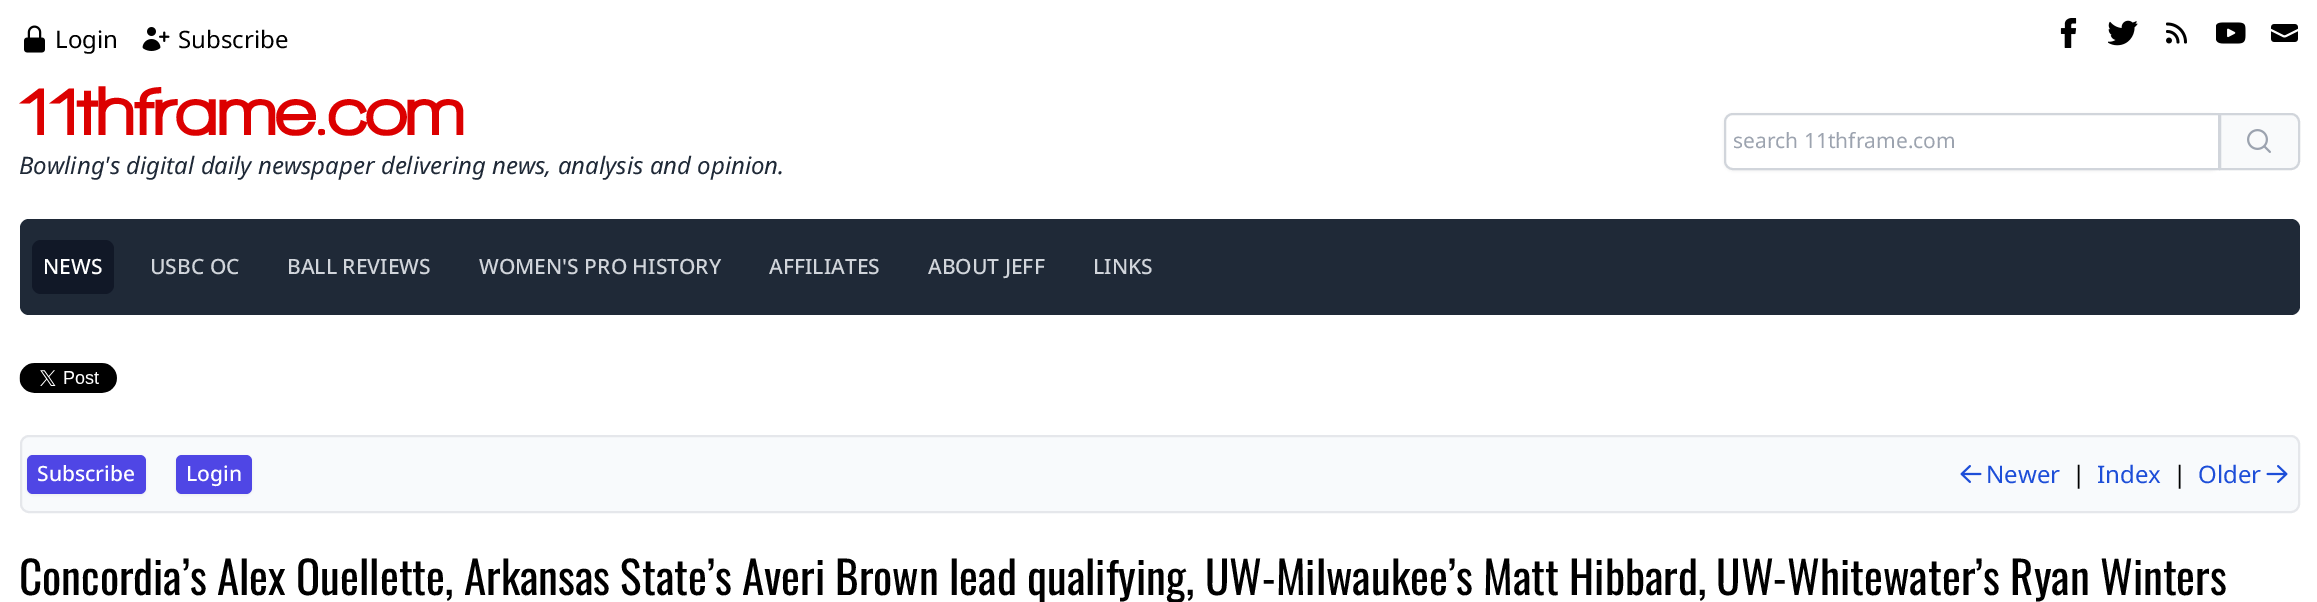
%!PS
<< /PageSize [2317 602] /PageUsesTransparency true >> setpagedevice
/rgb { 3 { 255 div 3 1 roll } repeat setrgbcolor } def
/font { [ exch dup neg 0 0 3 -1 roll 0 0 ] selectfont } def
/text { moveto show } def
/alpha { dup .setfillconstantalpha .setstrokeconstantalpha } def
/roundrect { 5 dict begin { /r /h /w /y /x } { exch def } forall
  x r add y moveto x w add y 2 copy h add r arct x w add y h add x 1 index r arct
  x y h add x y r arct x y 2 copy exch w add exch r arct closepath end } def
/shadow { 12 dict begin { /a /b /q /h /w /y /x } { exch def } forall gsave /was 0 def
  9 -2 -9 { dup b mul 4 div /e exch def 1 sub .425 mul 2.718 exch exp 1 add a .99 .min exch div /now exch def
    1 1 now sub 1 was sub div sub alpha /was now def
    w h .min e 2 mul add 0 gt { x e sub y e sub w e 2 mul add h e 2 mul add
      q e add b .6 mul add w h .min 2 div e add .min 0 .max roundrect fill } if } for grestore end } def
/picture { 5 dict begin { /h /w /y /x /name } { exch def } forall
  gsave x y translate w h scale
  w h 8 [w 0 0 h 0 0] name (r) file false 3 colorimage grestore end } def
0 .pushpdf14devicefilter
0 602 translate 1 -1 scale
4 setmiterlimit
255 255 255 rgb
0 0 2317 602 rectfill
(img_01.rgb) 24 25 21 28 picture
(img_02.rgb) 142 27 28 24 picture
(img_03.rgb) 2060 18 17 30 picture
(img_04.rgb) 2108 20 30 26 picture
(img_05.rgb) 2166 22 21 22 picture
(img_06.rgb) 2216 22 30 22 picture
(img_07.rgb) 2271 24 27 18 picture
0 0 0 rgb
1724 114 496 57 9 1.5 0.05 shadow
255 255 255 rgb
1733 114 moveto 486 0 rlineto 0 55 rlineto -486 0 rlineto -4.5 0 -8 -3.5 -8 -8 rcurveto 0 -39 rlineto 0 -4.5 3.5 -8 8 -8 rcurveto closepath gsave fill grestore
209 213 219 rgb
2 setlinewidth
stroke
249 250 251 rgb
2220 114 moveto 71 0 rlineto 4.5 0 8 3.5 8 8 rcurveto 0 39 rlineto 0 4.5 -3.5 8 -8 8 rcurveto -71 0 rlineto closepath gsave fill grestore
209 213 219 rgb
stroke
(img_08.rgb) 2247 129 24 24 picture
31 41 55 rgb
20 219 2280 96 9 roundrect fill
17 24 39 rgb
32 240 82 54 9 roundrect fill
(img_09.rgb) 19 363 98 30 picture
248 250 252 rgb
21 436 2278 76 8 roundrect gsave fill grestore
229 231 235 rgb
stroke
0 0 0 rgb
27 456 119 39 6 1.5 0.05 shadow
79 70 229 rgb
27 455 119 39 6 roundrect fill
0 0 0 rgb
176 456 76 39 6 1.5 0.05 shadow
79 70 229 rgb
176 455 76 39 6 roundrect fill
(img_10.rgb) 1960 465 22 18 picture
(img_11.rgb) 2266 465 22 18 picture
/NotoSans-Regular 24 font
0 0 0 rgb
(Login) 55 48 text
(Subscribe) 178 48 text
/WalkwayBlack-Black 72 font
220 0 0 rgb
(11thframe.com) 19 135 text
/NotoSans-Italic 24 font
31 41 55 rgb
(Bowling's digital daily newspaper delivering news, analysis and opinion.) 19 174 text
/NotoSans-Regular 21 font
156 163 175 rgb
(search 11thframe.com) 1733 148 text
/NotoSans-Medium 21 font
255 255 255 rgb
(NEWS) 43 274 text
209 213 219 rgb
(USBC OC) 150 274 text
(BALL REVIEWS) 287 274 text
(WOMEN'S PRO HISTORY) 479 274 text
(AFFILIATES) 769 274 text
(ABOUT JEFF) 928 274 text
(LINKS) 1093 274 text
255 255 255 rgb
(Subscribe) 37 481 text
(Login) 186 481 text
/NotoSans-Regular 24 font
29 78 216 rgb
(Newer) 1986 483 text
0 0 0 rgb
(|) 2072 483 text
29 78 216 rgb
(Index) 2097 483 text
0 0 0 rgb
(|) 2173 483 text
29 78 216 rgb
(Older) 2198 483 text
/Oswald-Regular 45 font
0 0 0 rgb
(Concordia’s Alex Ouellette, Arkansas State’s Averi Brown lead qualifying, UW-Milwaukee’s Matt Hibbard, UW-Whitewater’s Ryan Winters) 19 595 text
.poppdf14devicefilter showpage
